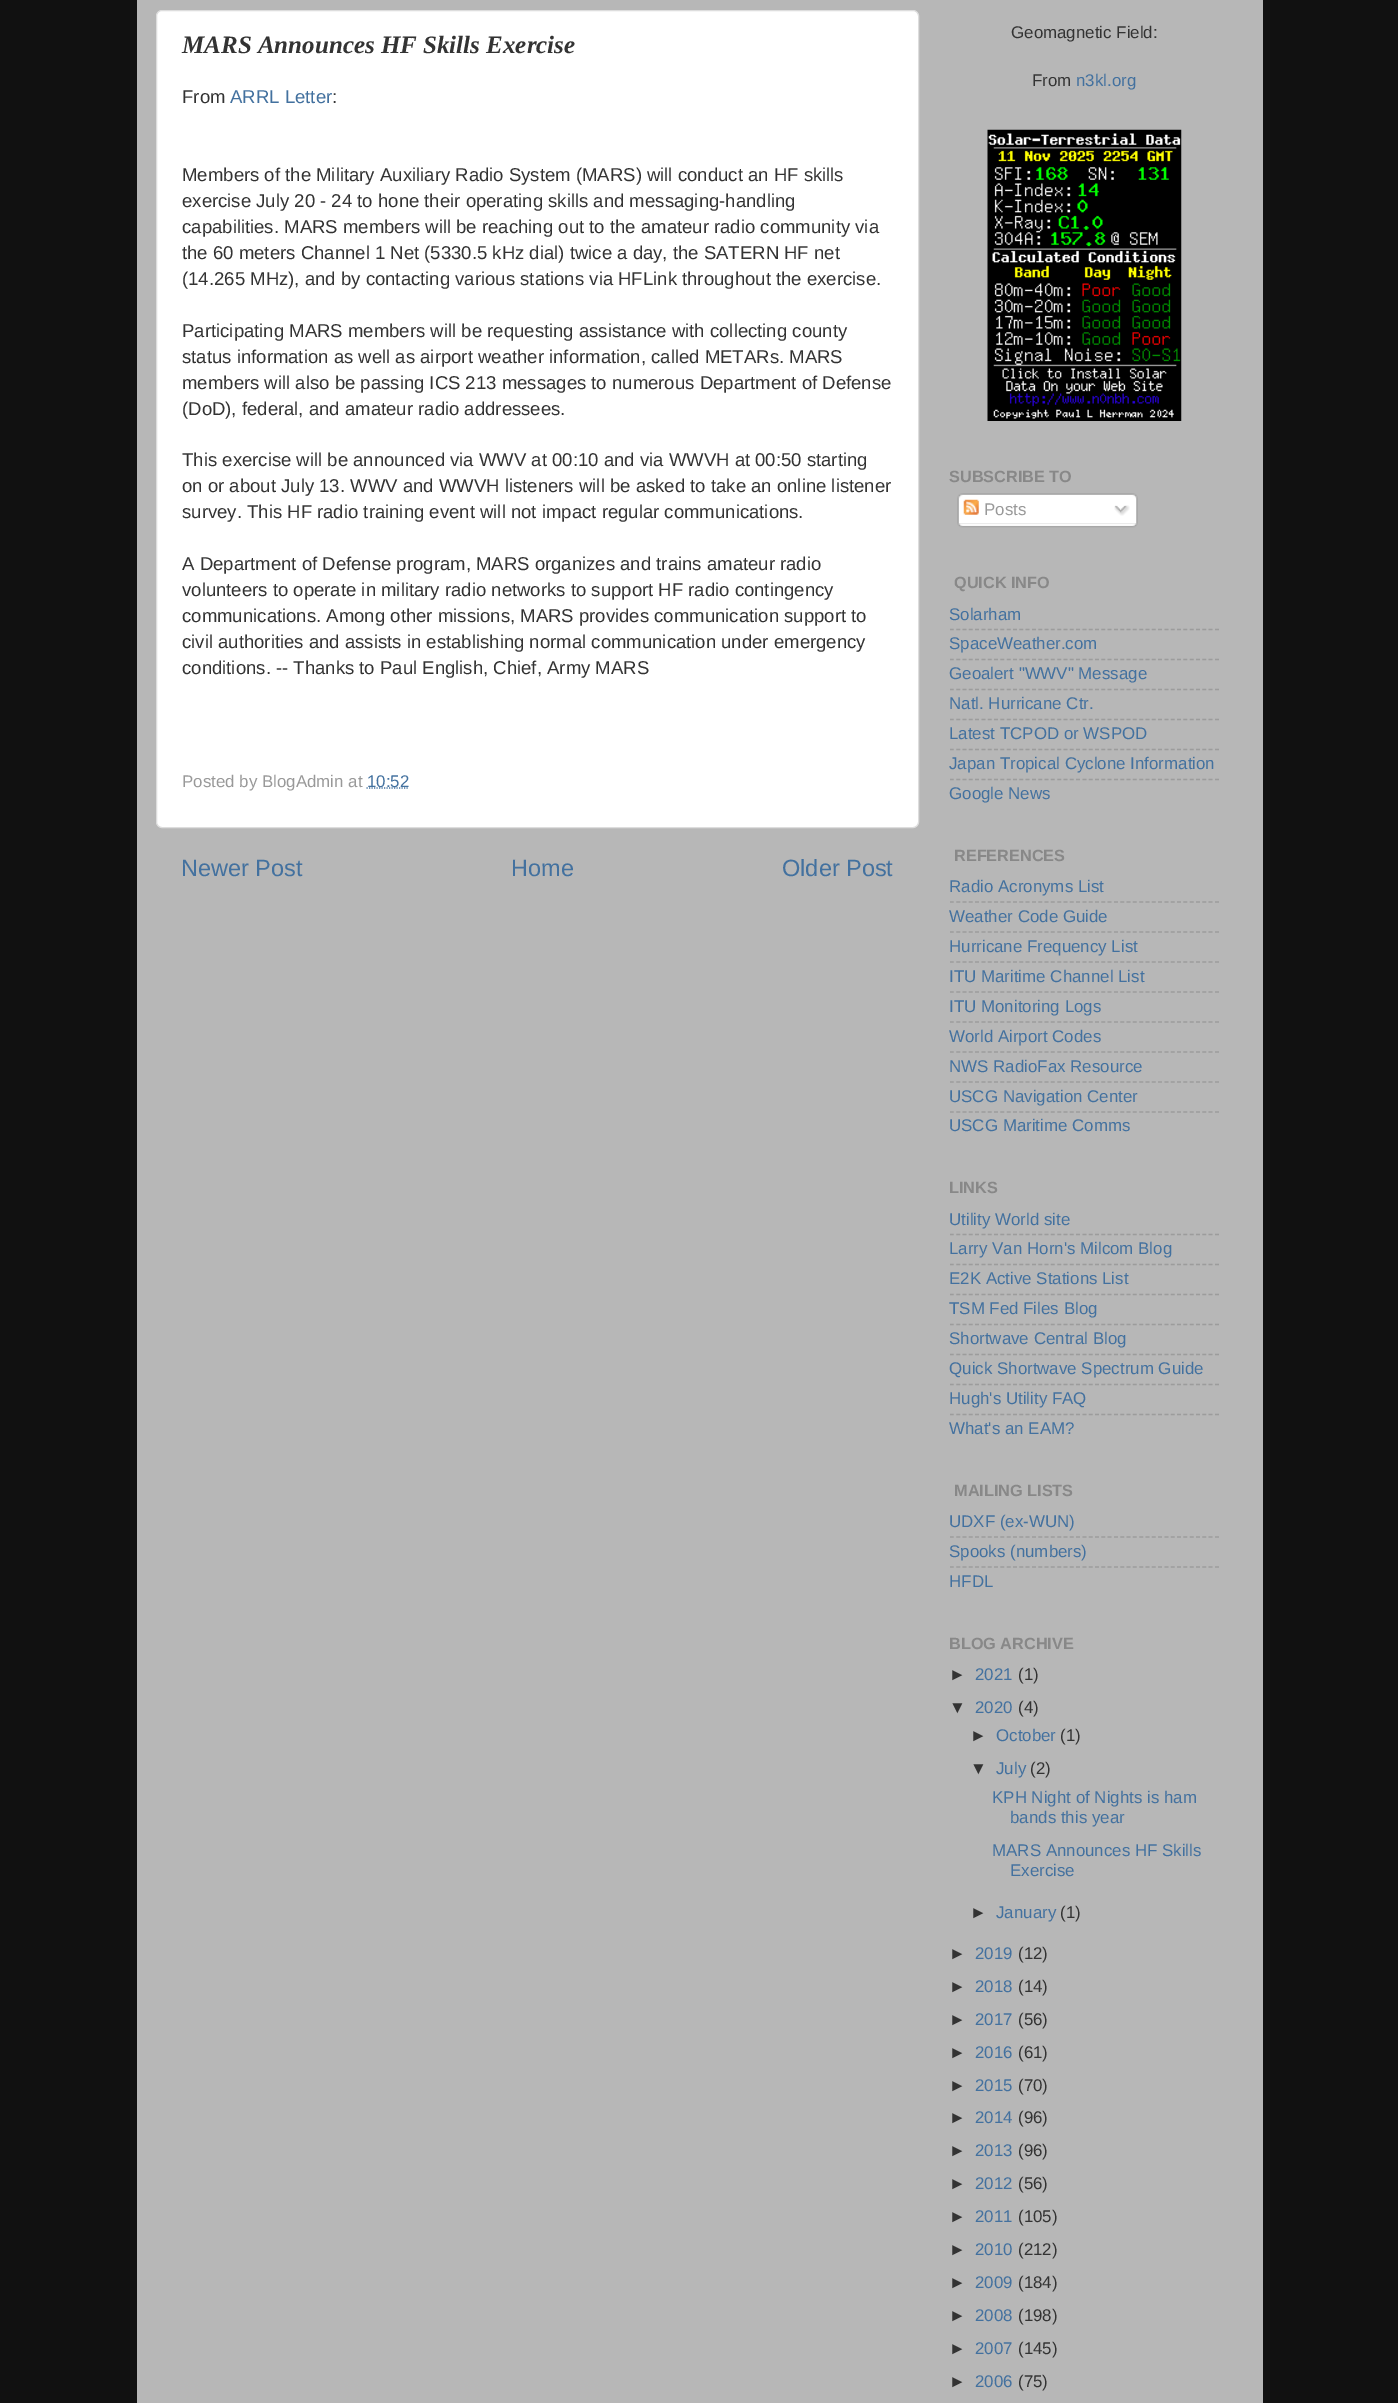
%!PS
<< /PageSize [1398 2403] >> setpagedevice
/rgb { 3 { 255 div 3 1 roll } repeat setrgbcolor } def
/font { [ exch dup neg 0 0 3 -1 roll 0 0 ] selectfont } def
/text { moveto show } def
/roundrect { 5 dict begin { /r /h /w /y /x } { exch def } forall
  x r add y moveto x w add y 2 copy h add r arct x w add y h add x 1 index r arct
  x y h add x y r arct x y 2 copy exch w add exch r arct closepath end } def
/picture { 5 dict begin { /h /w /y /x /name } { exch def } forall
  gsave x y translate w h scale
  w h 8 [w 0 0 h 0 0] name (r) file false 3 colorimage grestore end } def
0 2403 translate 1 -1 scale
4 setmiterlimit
17 17 17 rgb
0 0 1398 2403 rectfill
183 183 183 rgb
137 0 1126 2403 rectfill
255 255 255 rgb
156.5 10.5 762 817 5.5 roundrect gsave fill grestore
221 221 221 rgb
stroke
67 113 159 rgb
1.2 setlinewidth
[1.25 1.25] 0 setdash
366.5 788 moveto 42.5 0 rlineto stroke
(img_01.rgb) 987 129 195 292 picture
(img_02.rgb) 957 493 181 31 picture
(img_03.rgb) 963 499 16 16 picture
(img_04.rgb) 1114 505 16 11 picture
(img_05.rgb) 957 523 181 5 picture
156 156 156 rgb
[3.75 2.56] 0 setdash
950 629.5 moveto 269 0 rlineto stroke
950 659.5 moveto 269 0 rlineto stroke
950 689.5 moveto 269 0 rlineto stroke
950 719.5 moveto 269 0 rlineto stroke
950 749.5 moveto 269 0 rlineto stroke
950 779.5 moveto 269 0 rlineto stroke
950 902 moveto 269 0 rlineto stroke
950 932 moveto 269 0 rlineto stroke
950 962 moveto 269 0 rlineto stroke
950 992 moveto 269 0 rlineto stroke
950 1022 moveto 269 0 rlineto stroke
950 1052 moveto 269 0 rlineto stroke
950 1082 moveto 269 0 rlineto stroke
950 1112 moveto 269 0 rlineto stroke
950 1234.5 moveto 269 0 rlineto stroke
950 1264.5 moveto 269 0 rlineto stroke
950 1294.5 moveto 269 0 rlineto stroke
950 1324.5 moveto 269 0 rlineto stroke
950 1354.5 moveto 269 0 rlineto stroke
950 1384.5 moveto 269 0 rlineto stroke
950 1414.5 moveto 269 0 rlineto stroke
950 1537 moveto 269 0 rlineto stroke
950 1567 moveto 269 0 rlineto stroke
/LiberationSerif-BoldItalic 25 font
51 51 51 rgb
(MARS Announces HF Skills Exercise) 182 53 text
/LiberationSans-Regular 18.55 font
(From) 182 103 text
67 113 159 rgb
(ARRL Letter) 230 103 text
51 51 51 rgb
(:) 332 103 text
(Members of the Military Auxiliary Radio System \(MARS\) will conduct an HF skills) 182 181 text
(exercise July 20 - 24 to hone their operating skills and messaging-handling) 182 207 text
(capabilities. MARS members will be reaching out to the amateur radio community via) 182 233 text
(the 60 meters Channel 1 Net \(5330.5 kHz dial\) twice a day, the SATERN HF net) 182 259 text
(\(14.265 MHz\), and by contacting various stations via HFLink throughout the exercise.) 182 285 text
(Participating MARS members will be requesting assistance with collecting county) 182 337 text
(status information as well as airport weather information, called METARs. MARS) 182 363 text
(members will also be passing ICS 213 messages to numerous Department of Defense) 182 389 text
(\(DoD\), federal, and amateur radio addressees.) 182 415 text
(This exercise will be announced via WWV at 00:10 and via WWVH at 00:50 starting) 182 466 text
(on or about July 13. WWV and WWVH listeners will be asked to take an online listener) 182 492 text
(survey. This HF radio training event will not impact regular communications.) 182 518 text
(A Department of Defense program, MARS organizes and trains amateur radio) 182 570 text
(volunteers to operate in military radio networks to support HF radio contingency) 182 596 text
(communications. Among other missions, MARS provides communication support to) 182 622 text
(civil authorities and assists in establishing normal communication under emergency) 182 648 text
(conditions. -- Thanks to Paul English, Chief, Army MARS) 182 674 text
/LiberationSans-Regular 16.9 font
153 153 153 rgb
(Posted by BlogAdmin at) 182 787 text
67 113 159 rgb
(10:52) 367 787 text
/LiberationSans-Regular 23.5 font
(Newer Post) 181 876 text
(Home) 511 876 text
(Older Post) 782 876 text
/LiberationSans-Regular 16.9 font
51 51 51 rgb
(Geomagnetic Field:) 1011 38 text
(From) 1032 86 text
67 113 159 rgb
(n3kl.org) 1076 86 text
/LiberationSans-Bold 16.25 font
136 136 136 rgb
(SUBSCRIBE TO) 949 482 text
/LiberationSans-Regular 16.9 font
153 153 153 rgb
(Posts) 984 515 text
/LiberationSans-Bold 16.25 font
136 136 136 rgb
(QUICK INFO) 954 588 text
/LiberationSans-Regular 16.9 font
67 113 159 rgb
(Solarham) 949 620 text
(SpaceWeather.com) 949 649 text
(Geoalert "WWV" Message) 949 679 text
(Natl. Hurricane Ctr.) 949 709 text
(Latest TCPOD or WSPOD) 949 739 text
(Japan Tropical Cyclone Information) 949 769 text
(Google News) 949 799 text
/LiberationSans-Bold 16.25 font
136 136 136 rgb
(REFERENCES) 954 861 text
/LiberationSans-Regular 16.9 font
67 113 159 rgb
(Radio Acronyms List) 949 892 text
(Weather Code Guide) 949 922 text
(Hurricane Frequency List) 949 952 text
(ITU Maritime Channel List) 949 982 text
(ITU Monitoring Logs) 949 1012 text
(World Airport Codes) 949 1042 text
(NWS RadioFax Resource) 949 1072 text
(USCG Navigation Center) 949 1102 text
(USCG Maritime Comms) 949 1131 text
/LiberationSans-Bold 16.25 font
136 136 136 rgb
(LINKS) 949 1193 text
/LiberationSans-Regular 16.9 font
67 113 159 rgb
(Utility World site) 949 1225 text
(Larry Van Horn's Milcom Blog) 949 1254 text
(E2K Active Stations List) 949 1284 text
(TSM Fed Files Blog) 949 1314 text
(Shortwave Central Blog) 949 1344 text
(Quick Shortwave Spectrum Guide) 949 1374 text
(Hugh's Utility FAQ) 949 1404 text
(What's an EAM?) 949 1434 text
/LiberationSans-Bold 16.25 font
136 136 136 rgb
(MAILING LISTS) 954 1496 text
/LiberationSans-Regular 16.9 font
67 113 159 rgb
(UDXF \(ex-WUN\)) 949 1527 text
(Spooks \(numbers\)) 949 1557 text
(HFDL) 949 1587 text
/LiberationSans-Bold 16.25 font
136 136 136 rgb
(BLOG ARCHIVE) 949 1649 text
/LiberationSans-Regular 16.9 font
51 51 51 rgb
(►) 949 1680 text
67 113 159 rgb
(2021) 975 1680 text
51 51 51 rgb
(\(1\)) 1018 1680 text
(▼) 949 1713 text
67 113 159 rgb
(2020) 975 1713 text
51 51 51 rgb
(\(4\)) 1018 1713 text
(►) 970 1741 text
67 113 159 rgb
(October) 996 1741 text
51 51 51 rgb
(\(1\)) 1060 1741 text
(▼) 970 1774 text
67 113 159 rgb
(July) 996 1774 text
51 51 51 rgb
(\(2\)) 1030 1774 text
67 113 159 rgb
(KPH Night of Nights is ham) 992 1803 text
(bands this year) 1010 1823 text
(MARS Announces HF Skills) 992 1856 text
(Exercise) 1010 1876 text
51 51 51 rgb
(►) 970 1918 text
67 113 159 rgb
(January) 996 1918 text
51 51 51 rgb
(\(1\)) 1060 1918 text
(►) 949 1959 text
67 113 159 rgb
(2019) 975 1959 text
51 51 51 rgb
(\(12\)) 1018 1959 text
(►) 949 1992 text
67 113 159 rgb
(2018) 975 1992 text
51 51 51 rgb
(\(14\)) 1018 1992 text
(►) 949 2025 text
67 113 159 rgb
(2017) 975 2025 text
51 51 51 rgb
(\(56\)) 1018 2025 text
(►) 949 2058 text
67 113 159 rgb
(2016) 975 2058 text
51 51 51 rgb
(\(61\)) 1018 2058 text
(►) 949 2091 text
67 113 159 rgb
(2015) 975 2091 text
51 51 51 rgb
(\(70\)) 1018 2091 text
(►) 949 2123 text
67 113 159 rgb
(2014) 975 2123 text
51 51 51 rgb
(\(96\)) 1018 2123 text
(►) 949 2156 text
67 113 159 rgb
(2013) 975 2156 text
51 51 51 rgb
(\(96\)) 1018 2156 text
(►) 949 2189 text
67 113 159 rgb
(2012) 975 2189 text
51 51 51 rgb
(\(56\)) 1018 2189 text
(►) 949 2222 text
67 113 159 rgb
(2011) 975 2222 text
51 51 51 rgb
(\(105\)) 1018 2222 text
(►) 949 2255 text
67 113 159 rgb
(2010) 975 2255 text
51 51 51 rgb
(\(212\)) 1018 2255 text
(►) 949 2288 text
67 113 159 rgb
(2009) 975 2288 text
51 51 51 rgb
(\(184\)) 1018 2288 text
(►) 949 2321 text
67 113 159 rgb
(2008) 975 2321 text
51 51 51 rgb
(\(198\)) 1018 2321 text
(►) 949 2354 text
67 113 159 rgb
(2007) 975 2354 text
51 51 51 rgb
(\(145\)) 1018 2354 text
(►) 949 2387 text
67 113 159 rgb
(2006) 975 2387 text
51 51 51 rgb
(\(75\)) 1018 2387 text
showpage
